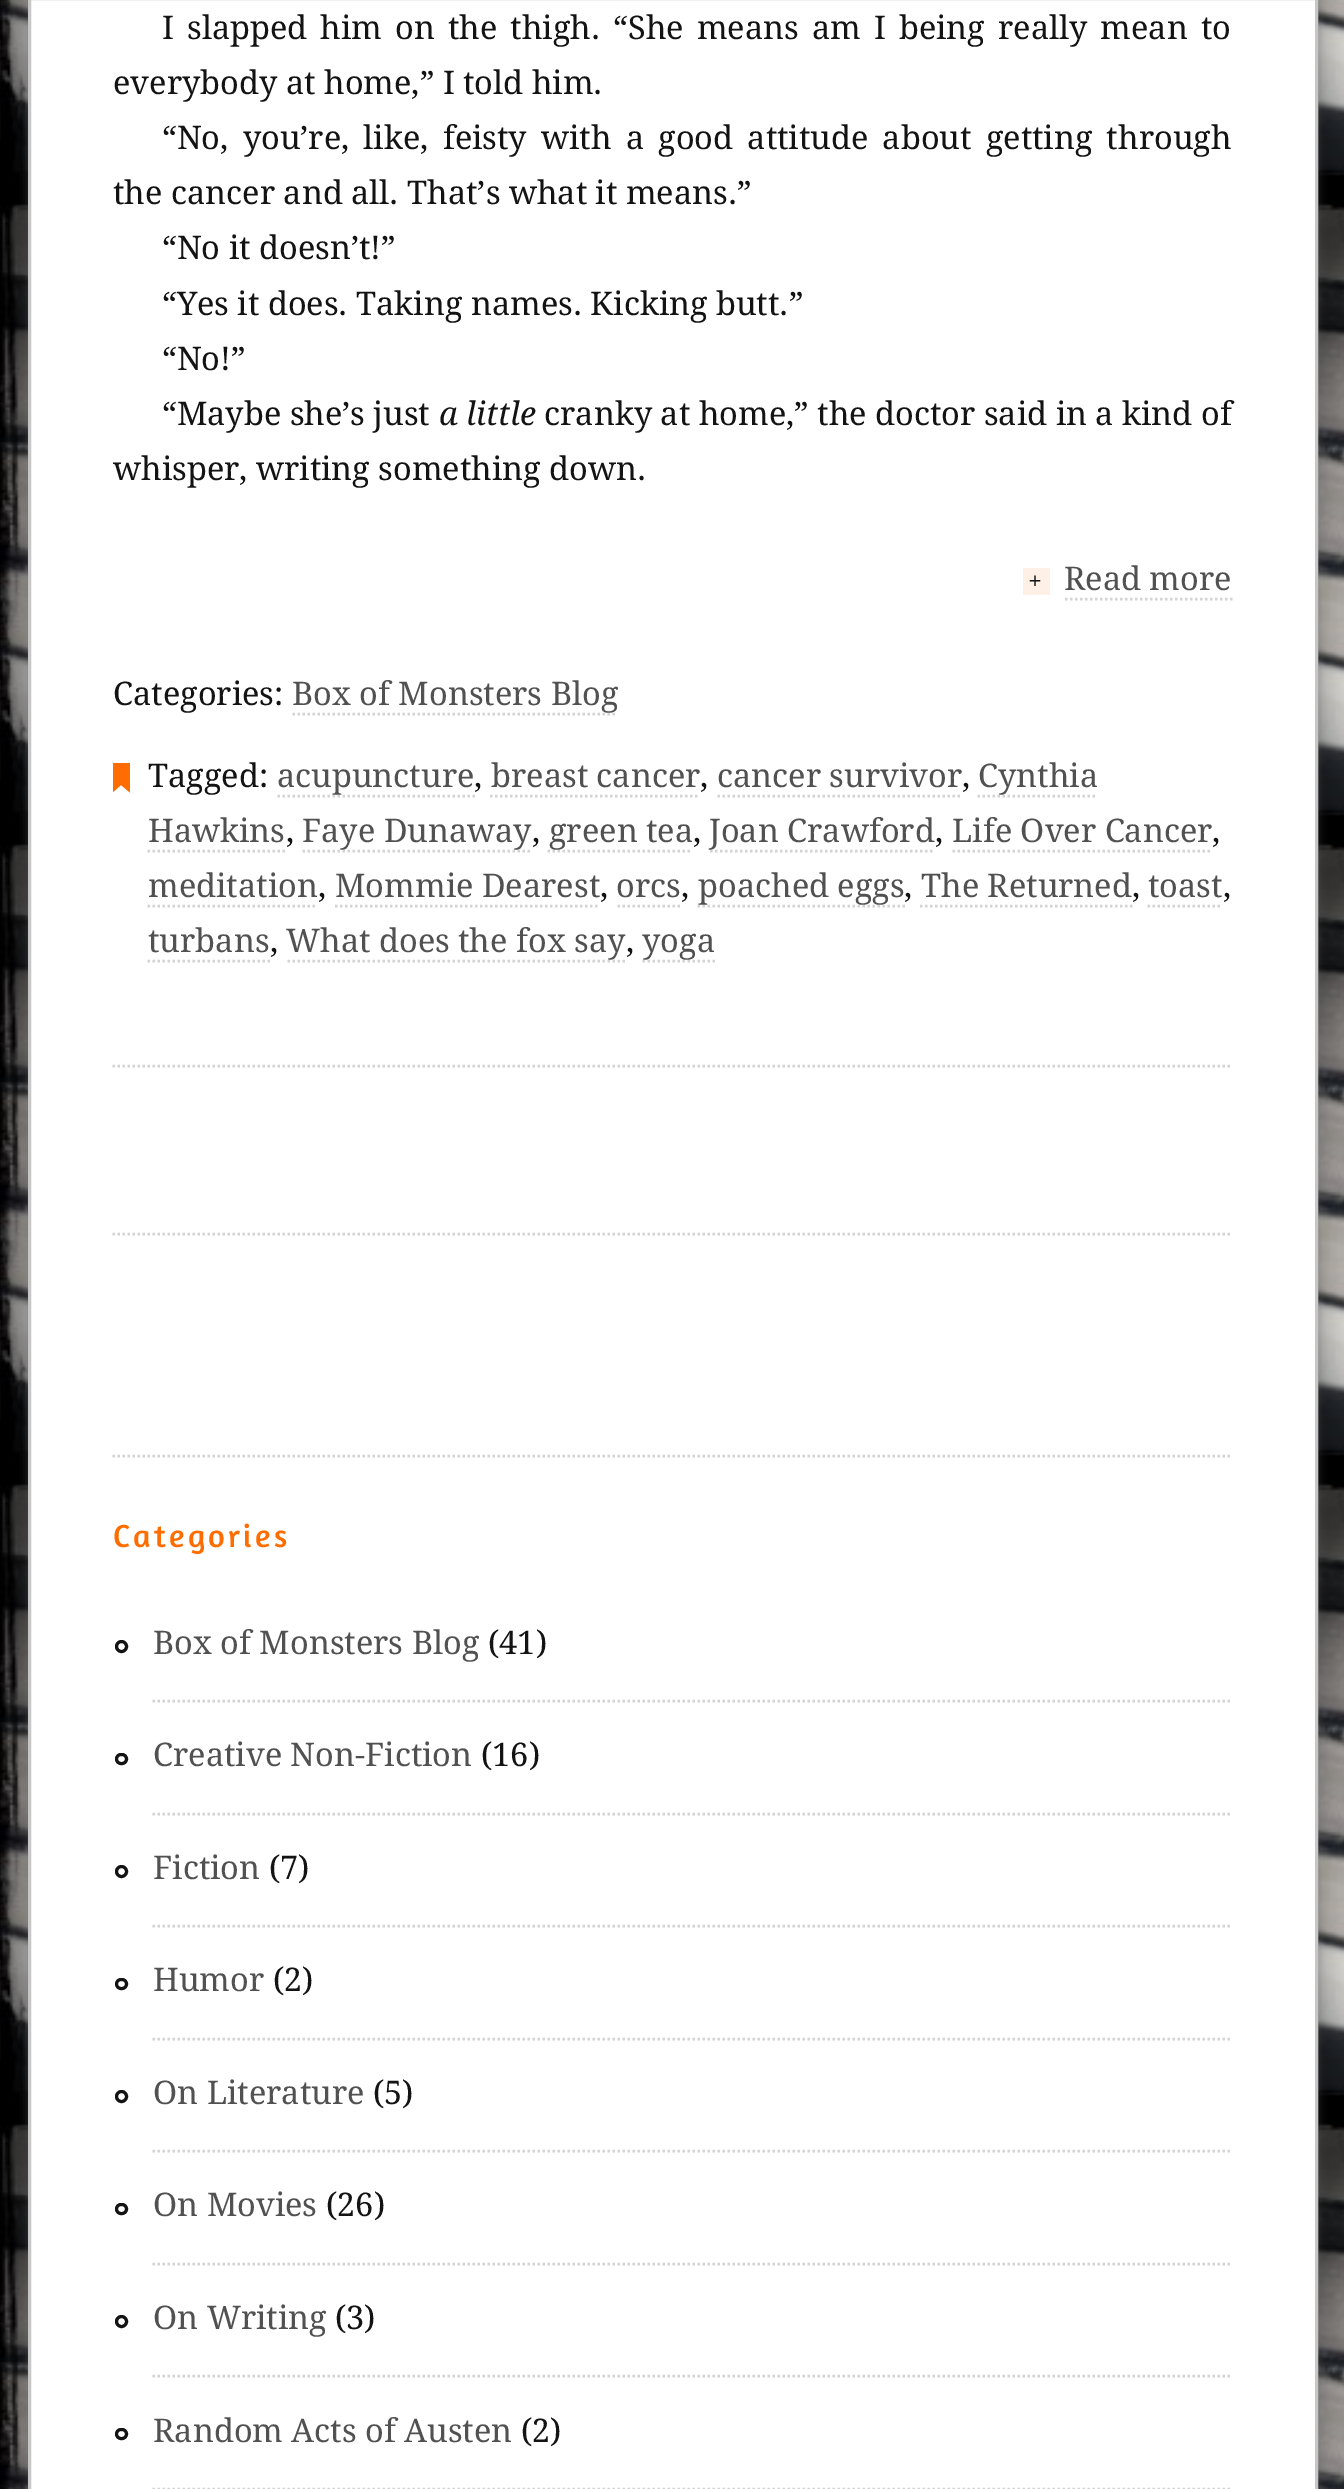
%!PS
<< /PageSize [1344 2489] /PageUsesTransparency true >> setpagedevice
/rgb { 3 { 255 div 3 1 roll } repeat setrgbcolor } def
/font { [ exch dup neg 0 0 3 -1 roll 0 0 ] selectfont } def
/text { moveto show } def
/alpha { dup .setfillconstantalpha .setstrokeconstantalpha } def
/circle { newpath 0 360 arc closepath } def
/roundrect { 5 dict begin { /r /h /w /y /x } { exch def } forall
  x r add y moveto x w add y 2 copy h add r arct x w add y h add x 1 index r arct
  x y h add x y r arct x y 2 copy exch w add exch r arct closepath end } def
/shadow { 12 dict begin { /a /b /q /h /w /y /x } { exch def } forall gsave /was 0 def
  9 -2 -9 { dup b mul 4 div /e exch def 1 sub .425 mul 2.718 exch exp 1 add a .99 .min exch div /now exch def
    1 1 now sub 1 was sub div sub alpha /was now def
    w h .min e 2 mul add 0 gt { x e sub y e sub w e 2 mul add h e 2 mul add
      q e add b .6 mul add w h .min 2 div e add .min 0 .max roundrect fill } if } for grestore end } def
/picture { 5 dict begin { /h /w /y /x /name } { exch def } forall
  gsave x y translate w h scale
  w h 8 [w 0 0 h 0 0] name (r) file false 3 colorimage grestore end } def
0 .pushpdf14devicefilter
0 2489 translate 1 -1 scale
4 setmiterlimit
255 255 255 rgb
0 0 1344 2489 rectfill
(img_01.rgb) 0 0 1344 2489 picture
100 100 100 rgb
28 -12 1290 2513 0 4 0.45 shadow
255 255 255 rgb
29.5 -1.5 moveto 1287 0 rlineto 0 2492 rlineto -1287 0 rlineto closepath gsave fill grestore
198 198 198 rgb
3 setlinewidth
stroke
255 240 230 rgb
1023 568 27 27 rectfill
211 211 211 rgb
2.5 setlinewidth
[2.5 2.5] 0 setdash
1065 599 moveto 167.5 0 rlineto stroke
292.5 714 moveto 325 0 rlineto stroke
gsave
113 763 17 30 rectclip
255 108 1 rgb
130 792.5 moveto -9 -7.5 rlineto -8.5 7.5 rlineto 0 -30 rlineto 17.5 0 rlineto closepath fill
grestore
277.5 796 moveto 197.5 0 rlineto stroke
490 796 moveto 210 0 rlineto stroke
717.5 796 moveto 245 0 rlineto stroke
977.5 796 moveto 120 0 rlineto stroke
147.5 851 moveto 137.5 0 rlineto stroke
302.5 851 moveto 230 0 rlineto stroke
547.5 851 moveto 145 0 rlineto stroke
710 851 moveto 225 0 rlineto stroke
952.5 851 moveto 260 0 rlineto stroke
147.5 906 moveto 170 0 rlineto stroke
335 906 moveto 265 0 rlineto stroke
617.5 906 moveto 62.5 0 rlineto stroke
697.5 906 moveto 207.5 0 rlineto stroke
920 906 moveto 212.5 0 rlineto stroke
1147.5 906 moveto 75 0 rlineto stroke
147.5 961 moveto 122.5 0 rlineto stroke
287.5 961 moveto 337.5 0 rlineto stroke
642.5 961 moveto 72.5 0 rlineto stroke
112.5 1066 moveto 1120 0 rlineto stroke
112.5 1234 moveto 1120 0 rlineto stroke
112.5 1456 moveto 1120 0 rlineto stroke
152.5 1701 moveto 1080 0 rlineto stroke
19 19 19 rgb
3 setlinewidth
[] 0 setdash
121.5 1646.5 5 circle stroke
211 211 211 rgb
2.5 setlinewidth
[2.5 2.5] 0 setdash
152.5 1814 moveto 1080 0 rlineto stroke
19 19 19 rgb
3 setlinewidth
[] 0 setdash
116.5 1754.5 10 9 4.5 roundrect stroke
211 211 211 rgb
2.5 setlinewidth
[2.5 2.5] 0 setdash
152.5 1926 moveto 1080 0 rlineto stroke
19 19 19 rgb
3 setlinewidth
[] 0 setdash
121.5 1871.5 5 circle stroke
211 211 211 rgb
2.5 setlinewidth
[2.5 2.5] 0 setdash
152.5 2039 moveto 1080 0 rlineto stroke
19 19 19 rgb
3 setlinewidth
[] 0 setdash
116.5 1979.5 10 9 4.5 roundrect stroke
211 211 211 rgb
2.5 setlinewidth
[2.5 2.5] 0 setdash
152.5 2151 moveto 1080 0 rlineto stroke
19 19 19 rgb
3 setlinewidth
[] 0 setdash
121.5 2096.5 5 circle stroke
211 211 211 rgb
2.5 setlinewidth
[2.5 2.5] 0 setdash
152.5 2264 moveto 1080 0 rlineto stroke
19 19 19 rgb
3 setlinewidth
[] 0 setdash
116.5 2204.5 10 9 4.5 roundrect stroke
211 211 211 rgb
2.5 setlinewidth
[2.5 2.5] 0 setdash
152.5 2376 moveto 1080 0 rlineto stroke
19 19 19 rgb
3 setlinewidth
[] 0 setdash
121.5 2321.5 5 circle stroke
211 211 211 rgb
2.5 setlinewidth
[2.5 2.5] 0 setdash
152.5 2489 moveto 1080 0 rlineto stroke
19 19 19 rgb
3 setlinewidth
[] 0 setdash
116.5 2429.5 10 9 4.5 roundrect stroke
/DroidSerif-Regular 32.5 font
162 39 moveto 4.6 0 32 (I slapped him on the thigh. “She means am I being really mean to) widthshow
(everybody at home,” I told him.) 113 94 text
162 149 moveto 5.75 0 32 (“No, you’re, like, feisty with a good attitude about getting through) widthshow
(the cancer and all. That’s what it means.”) 113 204 text
(“No it doesn’t!”) 162 259 text
(“Yes it does. Taking names. Kicking butt.”) 162 315 text
(“No!”) 162 370 text
(“Maybe she’s just) 162 425 text
/DroidSerif-Italic 32.5 font
(a little) 439 425 text
/DroidSerif-Regular 32.5 font
(cranky at home,” the doctor said in a kind of) 544 425 text
(whisper, writing something down.) 113 480 text
/DejaVuSansMono-Regular 20 font
(+) 1029 587 text
/DroidSerif-Regular 32.5 font
81 81 81 rgb
(Read more) 1064 590 text
19 19 19 rgb
(Categories:) 113 705 text
81 81 81 rgb
(Box of Monsters Blog) 292 705 text
19 19 19 rgb
(Tagged:) 148 787 text
81 81 81 rgb
(acupuncture) 277 787 text
19 19 19 rgb
(,) 474 787 text
81 81 81 rgb
(breast cancer) 491 787 text
19 19 19 rgb
(,) 700 787 text
81 81 81 rgb
(cancer survivor) 717 787 text
19 19 19 rgb
(,) 962 787 text
81 81 81 rgb
(Cynthia) 978 787 text
(Hawkins) 148 842 text
19 19 19 rgb
(,) 286 842 text
81 81 81 rgb
(Faye Dunaway) 302 842 text
19 19 19 rgb
(,) 532 842 text
81 81 81 rgb
(green tea) 549 842 text
19 19 19 rgb
(,) 693 842 text
81 81 81 rgb
(Joan Crawford) 709 842 text
19 19 19 rgb
(,) 935 842 text
81 81 81 rgb
(Life Over Cancer) 952 842 text
19 19 19 rgb
(,) 1212 842 text
81 81 81 rgb
(meditation) 148 897 text
19 19 19 rgb
(,) 318 897 text
81 81 81 rgb
(Mommie Dearest) 335 897 text
19 19 19 rgb
(,) 600 897 text
81 81 81 rgb
(orcs) 616 897 text
19 19 19 rgb
(,) 681 897 text
81 81 81 rgb
(poached eggs) 698 897 text
19 19 19 rgb
(,) 904 897 text
81 81 81 rgb
(The Returned) 921 897 text
19 19 19 rgb
(,) 1132 897 text
81 81 81 rgb
(toast) 1148 897 text
19 19 19 rgb
(,) 1223 897 text
81 81 81 rgb
(turbans) 148 952 text
19 19 19 rgb
(,) 270 952 text
81 81 81 rgb
(What does the fox say) 286 952 text
19 19 19 rgb
(,) 626 952 text
81 81 81 rgb
(yoga) 642 952 text
/Amaranth-Regular 32.5 font
255 109 1 rgb
113 1547 moveto 3.25 0 (Categories) ashow
/DroidSerif-Regular 32.5 font
81 81 81 rgb
(Box of Monsters Blog) 153 1654 text
19 19 19 rgb
(\(41\)) 488 1654 text
81 81 81 rgb
(Creative Non-Fiction) 153 1766 text
19 19 19 rgb
(\(16\)) 481 1766 text
81 81 81 rgb
(Fiction) 153 1879 text
19 19 19 rgb
(\(7\)) 269 1879 text
81 81 81 rgb
(Humor) 153 1991 text
19 19 19 rgb
(\(2\)) 273 1991 text
81 81 81 rgb
(On Literature) 153 2104 text
19 19 19 rgb
(\(5\)) 373 2104 text
81 81 81 rgb
(On Movies) 153 2216 text
19 19 19 rgb
(\(26\)) 326 2216 text
81 81 81 rgb
(On Writing) 153 2329 text
19 19 19 rgb
(\(3\)) 335 2329 text
81 81 81 rgb
(Random Acts of Austen) 153 2442 text
19 19 19 rgb
(\(2\)) 521 2442 text
.poppdf14devicefilter showpage
